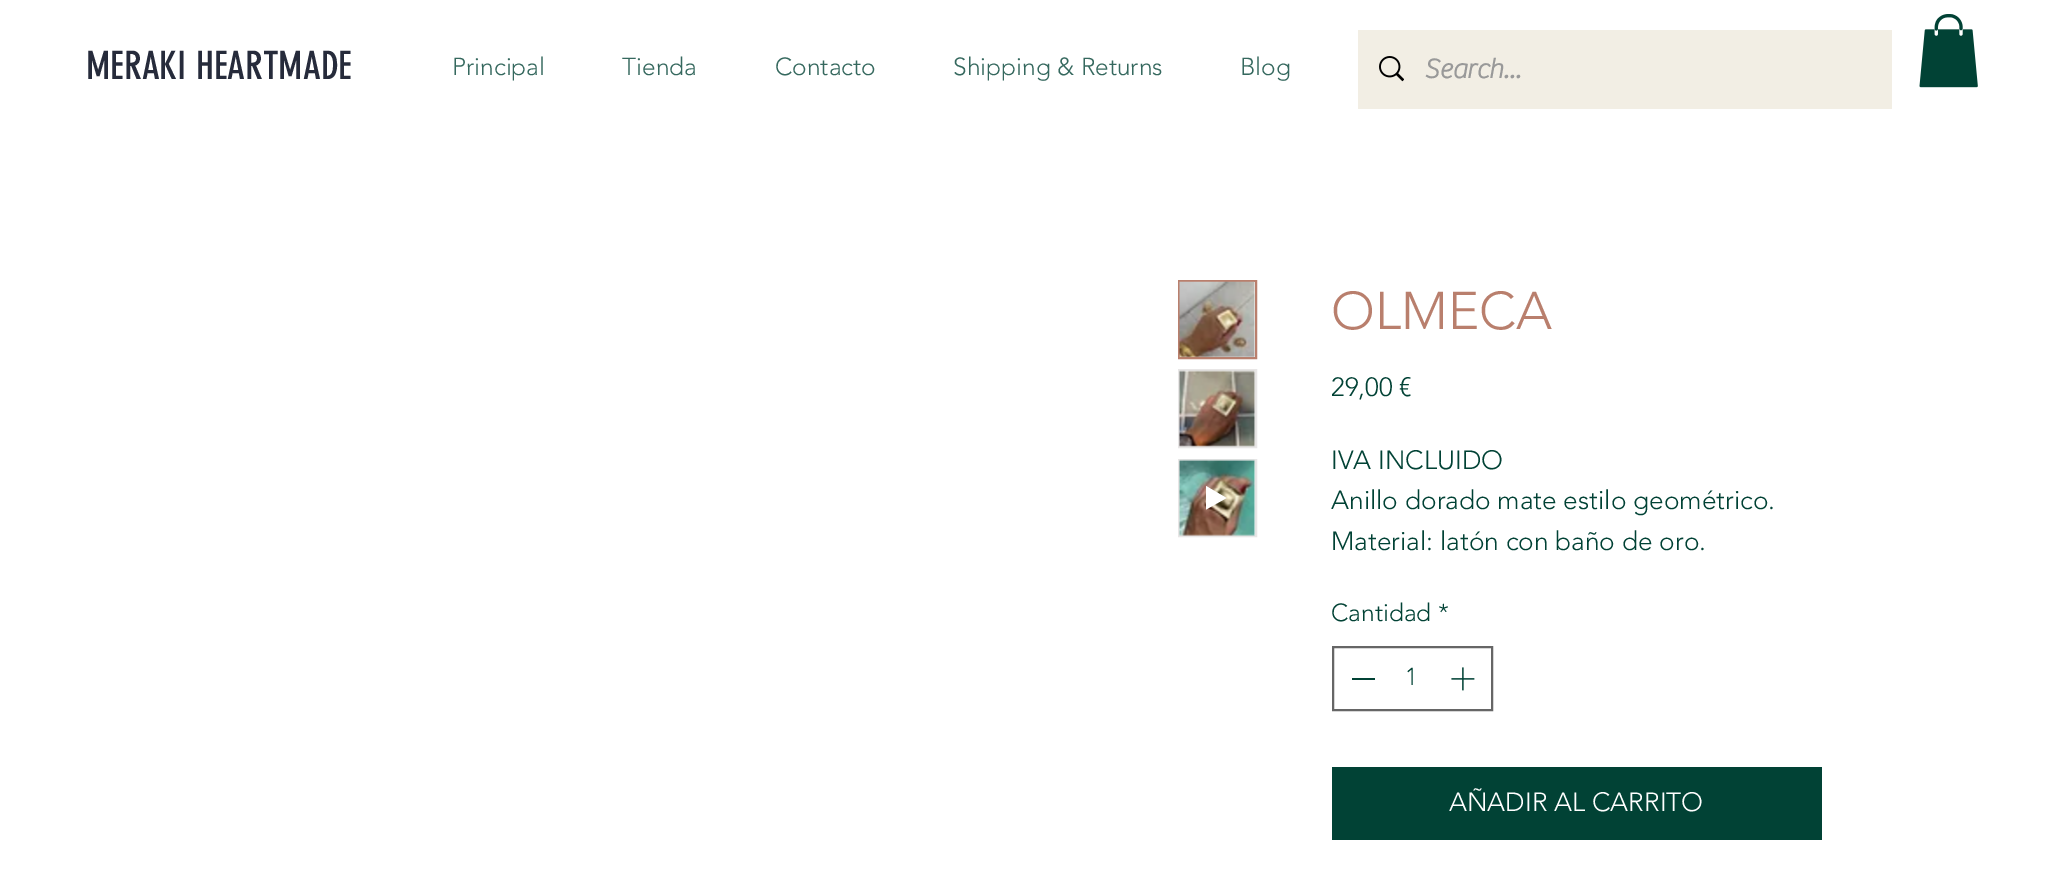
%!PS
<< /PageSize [2066 869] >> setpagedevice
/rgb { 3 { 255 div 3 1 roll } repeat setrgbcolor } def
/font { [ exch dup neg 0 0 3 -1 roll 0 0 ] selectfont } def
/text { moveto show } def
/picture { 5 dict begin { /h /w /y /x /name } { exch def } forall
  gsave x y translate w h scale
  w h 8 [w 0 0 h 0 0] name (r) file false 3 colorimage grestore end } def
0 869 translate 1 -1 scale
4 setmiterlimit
255 255 255 rgb
0 0 2066 869 rectfill
242 238 228 rgb
1358 30 534 79 rectfill
(img_01.rgb) 1379 56 25 26 picture
(img_02.rgb) 1919 14 59 74 picture
185 127 109 rgb
2 setlinewidth
1179 281 77 77 rectstroke
(img_03.rgb) 1179 281 76 77 picture
232 230 230 rgb
1179 370 77 77 rectstroke
(img_04.rgb) 1179 370 77 77 picture
1179 460 77 76 rectstroke
(img_05.rgb) 1179 459 77 77 picture
255 255 255 rgb
1206 486 moveto 0 23.5 rlineto 20.5 -11.5 rlineto closepath fill
102 102 102 rgb
1333 647 159 63 rectstroke
1 66 53 rgb
1352 678 23 2 rectfill
(img_06.rgb) 1451 667 24 24 picture
1332 767 490 73 rectfill
/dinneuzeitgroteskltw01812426-Regular 38.5 font
38 43 59 rgb
(MERAKI HEARTMADE) 86 79 text
/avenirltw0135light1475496-Light 24.5 font
53 104 94 rgb
(Principal) 452 75 text
(Tienda) 622 75 text
(Contacto) 775 75 text
(Shipping & Returns) 953 75 text
(Blog) 1240 75 text
/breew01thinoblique-Bold 28 font
153 153 153 rgb
(Search...) 1424 78 text
/avenirltw0135light1475496-Light 52.5 font
185 127 109 rgb
(OLMECA) 1331 329 text
/avenirltw0135light1475496-Light 26.25 font
1 66 53 rgb
(29,00 €) 1331 396 text
(IVA INCLUIDO) 1331 469 text
(Anillo dorado mate estilo geométrico.) 1331 509 text
(Material: latón con baño de oro.) 1331 550 text
/avenirltw0135light1475496-Light 24.5 font
(Cantidad) 1331 621 text
(*) 1438 621 text
(1) 1405 685 text
/avenirltw0135light1475496-Light 26.25 font
255 255 255 rgb
(AÑADIR AL CARRITO) 1449 811 text
showpage
